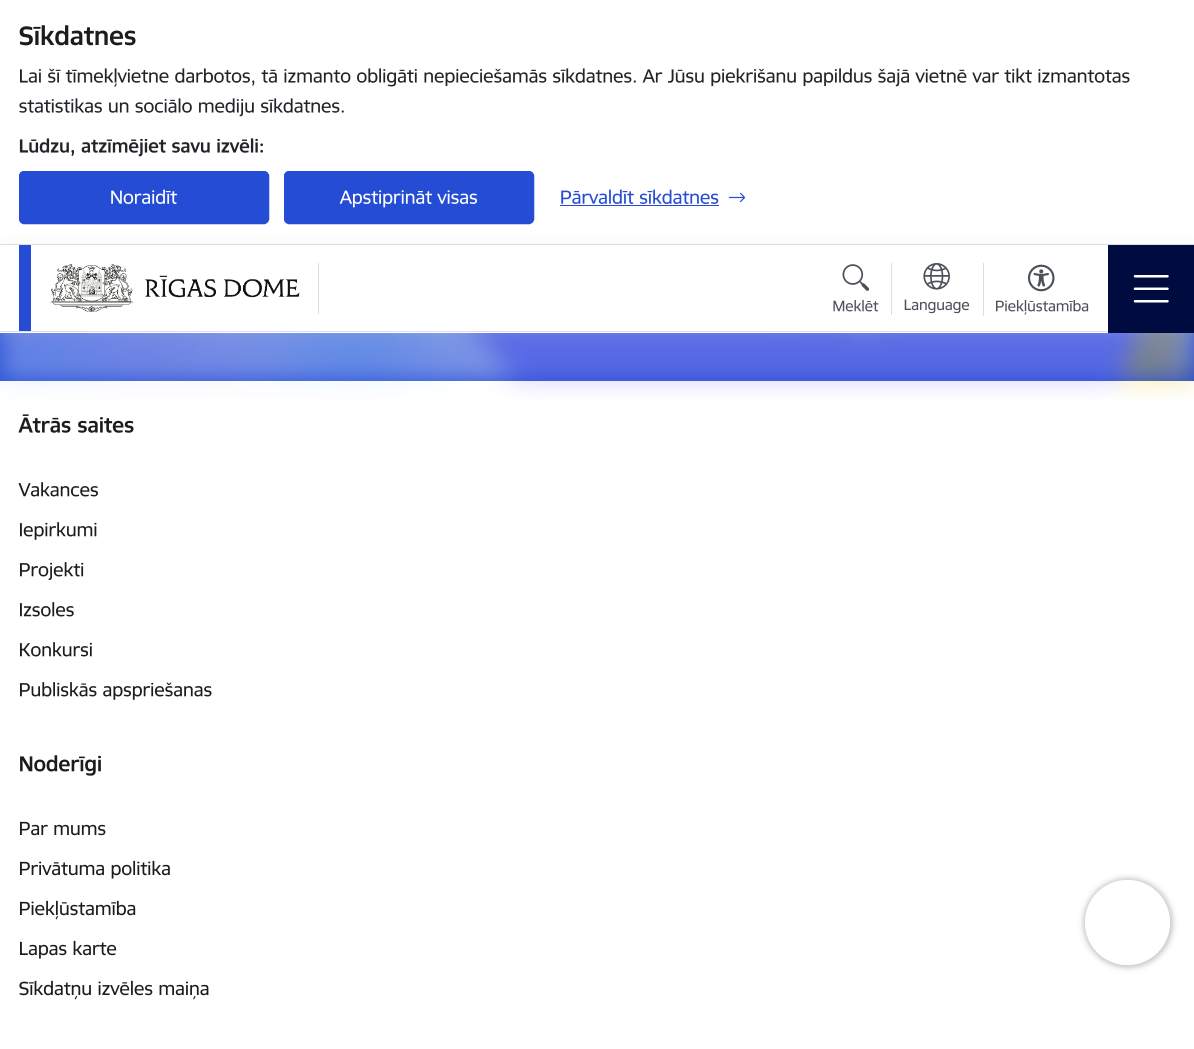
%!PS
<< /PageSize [1194 1049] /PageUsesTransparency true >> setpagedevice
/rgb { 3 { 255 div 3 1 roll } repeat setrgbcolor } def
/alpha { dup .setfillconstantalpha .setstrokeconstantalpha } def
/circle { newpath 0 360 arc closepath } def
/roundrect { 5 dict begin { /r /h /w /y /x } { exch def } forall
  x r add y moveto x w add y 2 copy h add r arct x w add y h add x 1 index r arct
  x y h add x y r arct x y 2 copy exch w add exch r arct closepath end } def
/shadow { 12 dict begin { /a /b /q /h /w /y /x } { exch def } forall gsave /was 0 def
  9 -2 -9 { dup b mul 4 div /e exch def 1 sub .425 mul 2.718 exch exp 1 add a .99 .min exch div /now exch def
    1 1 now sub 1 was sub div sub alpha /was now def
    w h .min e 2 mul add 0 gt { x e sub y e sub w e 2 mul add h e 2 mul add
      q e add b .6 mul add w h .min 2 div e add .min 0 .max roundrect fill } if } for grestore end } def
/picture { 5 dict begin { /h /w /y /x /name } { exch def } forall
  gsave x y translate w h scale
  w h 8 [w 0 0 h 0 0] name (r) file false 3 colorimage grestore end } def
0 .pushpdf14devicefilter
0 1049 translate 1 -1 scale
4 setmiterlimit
255 255 255 rgb
0 0 1194 1049 rectfill
219 222 228 rgb
0 244 1194 1 rectfill
(img_01.rgb) 19 25 117 21 picture
(img_02.rgb) 20 68 1110 19 picture
(img_03.rgb) 19 98 325 19 picture
(img_04.rgb) 19 138 244 19 picture
37 76 212 rgb
19.5 171.5 249 52 4.5 roundrect gsave fill grestore
stroke
(img_05.rgb) 111 189 67 15 picture
284.5 171.5 249 52 4.5 roundrect gsave fill grestore
stroke
(img_06.rgb) 339 190 138 18 picture
(img_07.rgb) 561 189 158 15 picture
(img_08.rgb) 728 192 18 11 picture
560 205 159 1 rectfill
0 333 1194 48 rectfill
(img_17.rgb) 0 333 1194 67 picture
219 222 228 rgb
0 245 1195 88 0 9.5 0.2 shadow
255 255 255 rgb
0 245 1108 88 rectfill
219 222 228 rgb
0 331 1108 1 rectfill
37 76 212 rgb
19 245 12 86 rectfill
(img_09.rgb) 50 263 250 50 picture
219 222 228 rgb
318 263 1 51 rectfill
(img_10.rgb) 842 264 28 27 picture
(img_11.rgb) 833 300 46 12 picture
891 263 1 52 rectfill
(img_12.rgb) 923 263 27 27 picture
(img_13.rgb) 904 299 66 15 picture
983 263 1 53 rectfill
(img_14.rgb) 1027 264 28 28 picture
(img_15.rgb) 996 300 93 15 picture
0 11 64 rgb
1108 245 86 88 rectfill
(img_16.rgb) 1133 275 36 28 picture
(img_18.rgb) 18 414 116 19 picture
(img_19.rgb) 18 482 80 15 picture
(img_20.rgb) 20 522 77 18 picture
(img_21.rgb) 20 562 64 18 picture
(img_22.rgb) 20 602 54 15 picture
(img_23.rgb) 20 642 72 15 picture
(img_24.rgb) 20 682 192 18 picture
(img_25.rgb) 20 755 81 21 picture
(img_26.rgb) 20 821 86 15 picture
(img_27.rgb) 20 860 150 19 picture
(img_28.rgb) 20 900 116 20 picture
(img_29.rgb) 20 940 97 19 picture
(img_30.rgb) 19 980 190 20 picture
0 0 0 rgb
1083 878 90 90 45 2.5 0.2 shadow
255 255 255 rgb
1127.5 922.5 42.5 circle fill
.poppdf14devicefilter showpage
